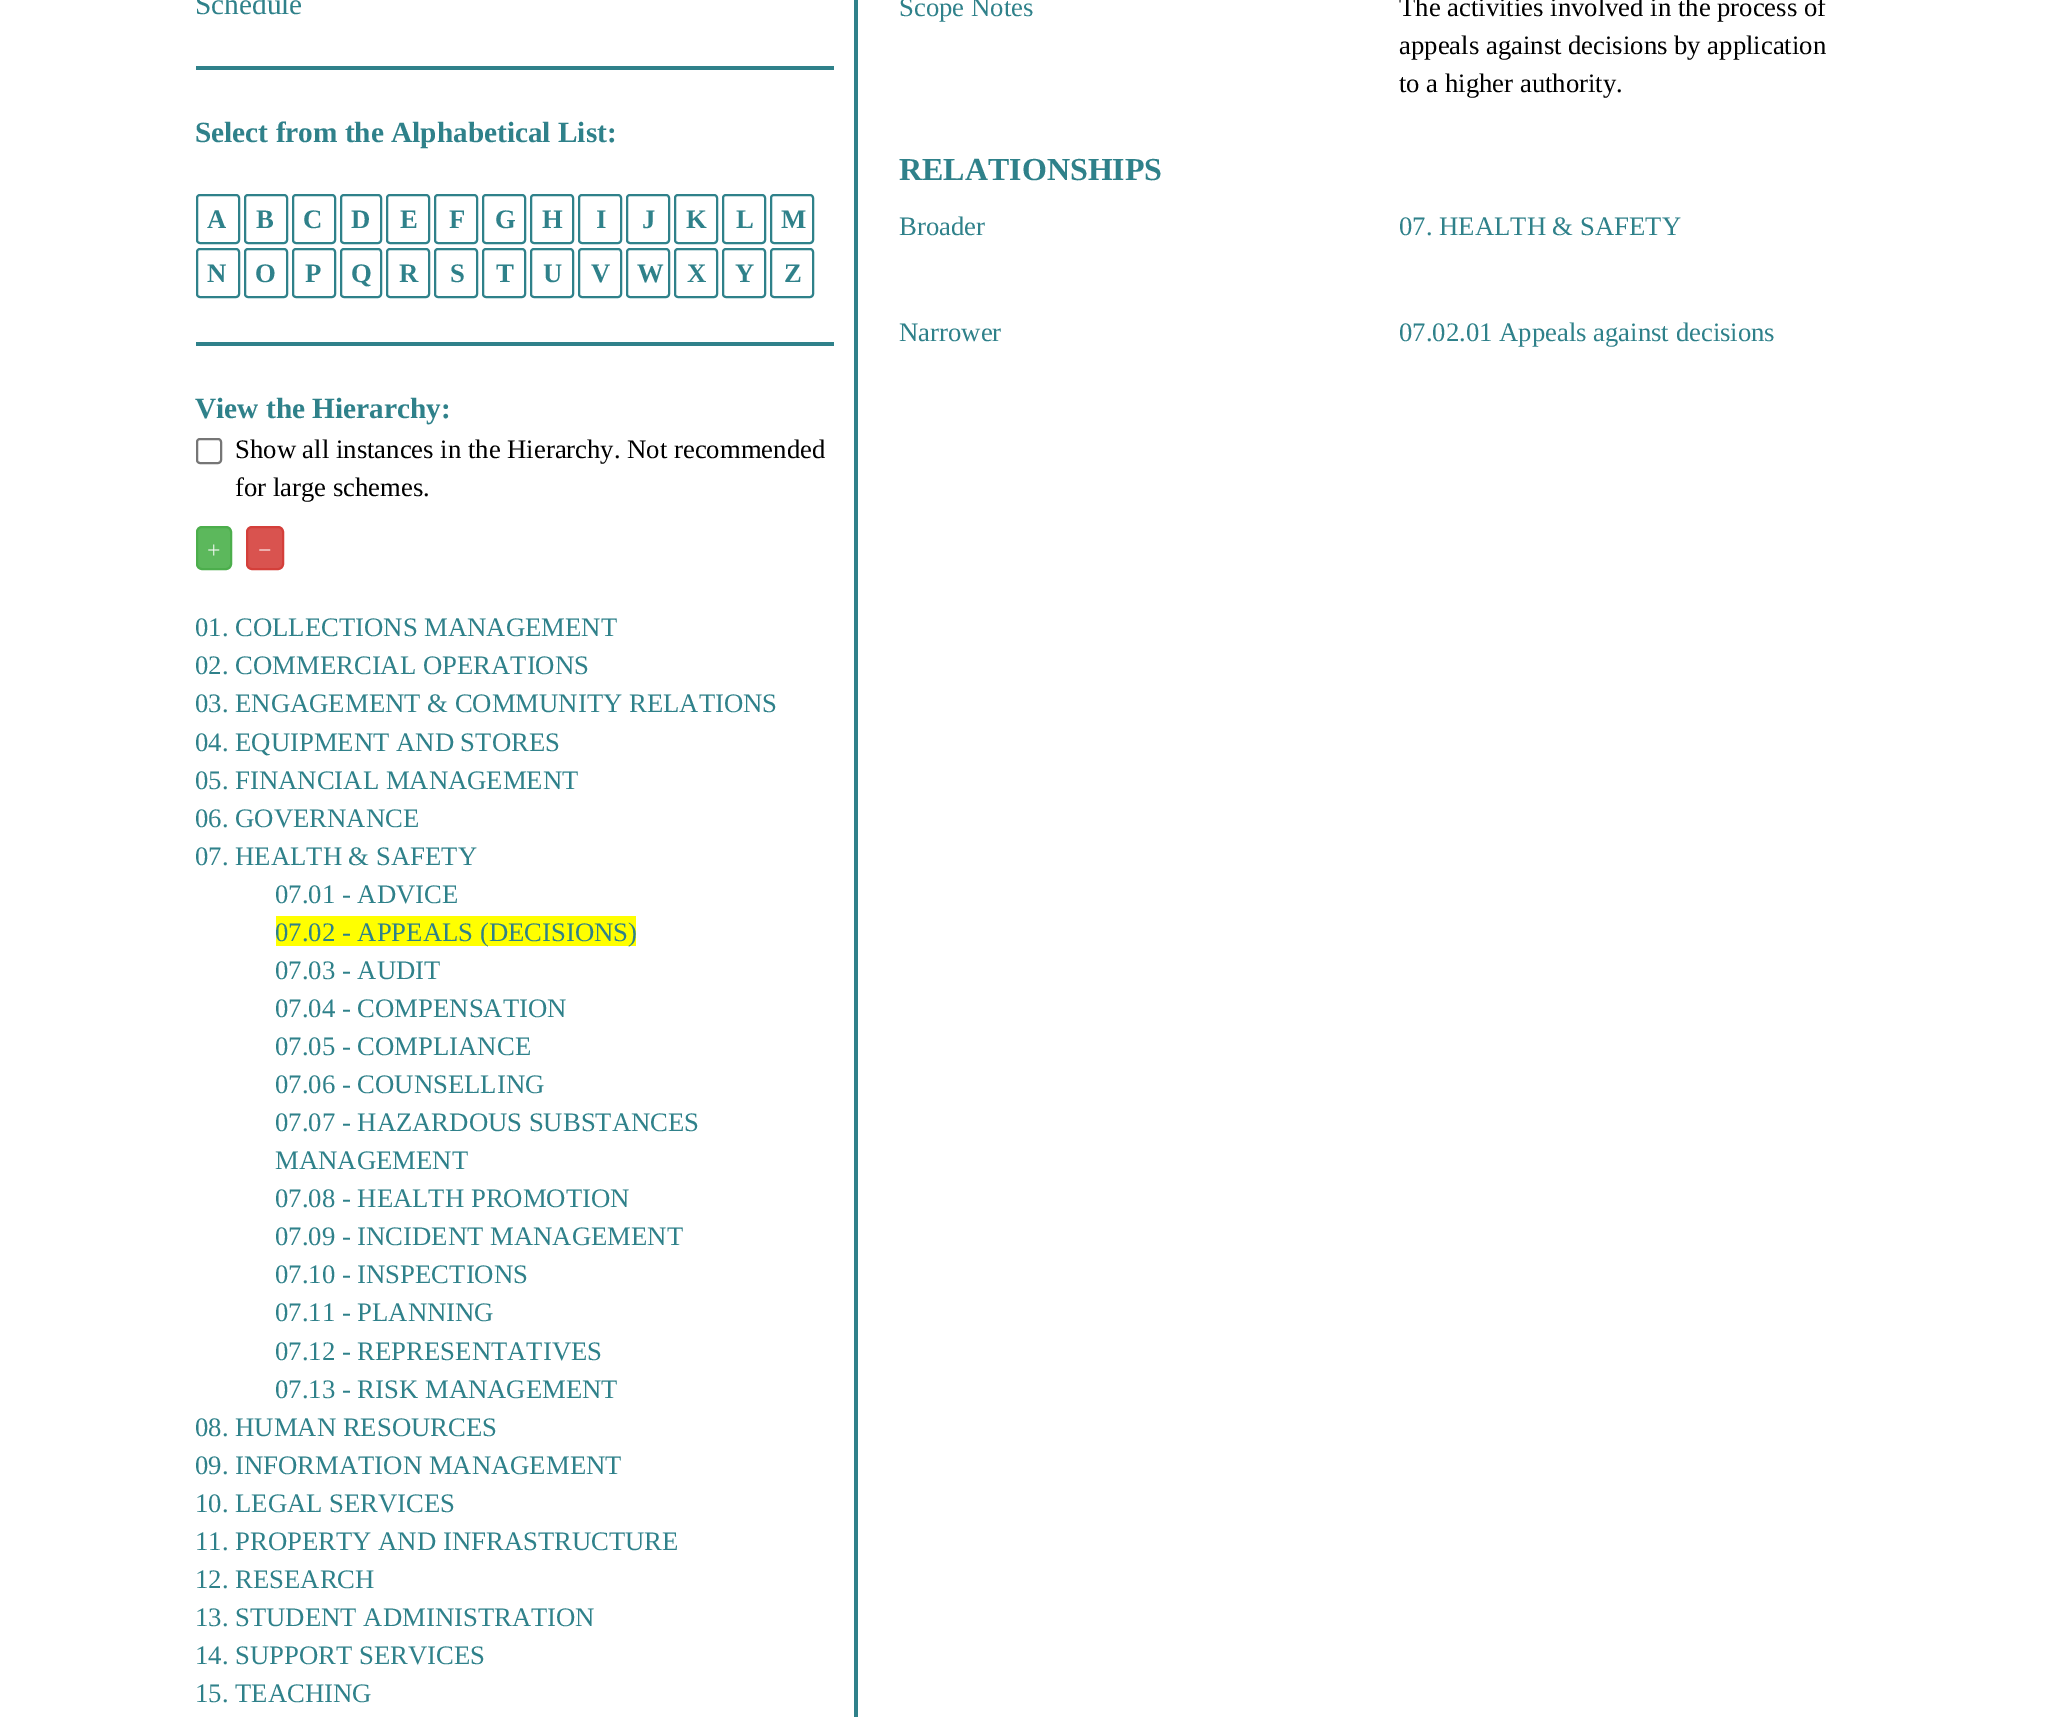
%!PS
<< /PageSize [2067 1717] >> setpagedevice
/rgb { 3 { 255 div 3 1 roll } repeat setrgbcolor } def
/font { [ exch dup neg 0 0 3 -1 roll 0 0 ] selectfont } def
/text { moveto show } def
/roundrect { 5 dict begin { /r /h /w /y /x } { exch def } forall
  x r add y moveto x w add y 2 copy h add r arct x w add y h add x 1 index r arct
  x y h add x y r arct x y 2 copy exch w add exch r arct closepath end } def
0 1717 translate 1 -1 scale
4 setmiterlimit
255 255 255 rgb
0 0 2067 1717 rectfill
47 129 138 rgb
854 0 4 1717 rectfill
196 66 638 4 rectfill
2 setlinewidth
197 195 42 48 3 roundrect stroke
245 195 42 48 3 roundrect stroke
293 195 42 48 3 roundrect stroke
341 195 40 48 3 roundrect stroke
387 195 42 48 3 roundrect stroke
435 195 42 48 3 roundrect stroke
483 195 42 48 3 roundrect stroke
531 195 42 48 3 roundrect stroke
579 195 42 48 3 roundrect stroke
627 195 42 48 3 roundrect stroke
675 195 42 48 3 roundrect stroke
723 195 42 48 3 roundrect stroke
771 195 42 48 3 roundrect stroke
197 249 42 48 3 roundrect stroke
245 249 42 48 3 roundrect stroke
293 249 42 48 3 roundrect stroke
341 249 40 48 3 roundrect stroke
387 249 42 48 3 roundrect stroke
435 249 42 48 3 roundrect stroke
483 249 42 48 3 roundrect stroke
531 249 42 48 3 roundrect stroke
579 249 42 48 3 roundrect stroke
627 249 42 48 3 roundrect stroke
675 249 42 48 3 roundrect stroke
723 249 42 48 3 roundrect stroke
771 249 42 48 3 roundrect stroke
196 342 638 4 rectfill
118 118 118 rgb
197 439 24 24 3 roundrect stroke
92 184 92 rgb
197 527 34 42 5 roundrect gsave fill grestore
76 174 76 rgb
stroke
217 83 79 rgb
247 527 36 42 5 roundrect gsave fill grestore
212 63 58 rgb
stroke
255 255 0 rgb
276 916 360 30 rectfill
/LiberationSerif-Regular 29.3 font
47 129 138 rgb
(Schedule) 195 14 text
/LiberationSerif-Bold 29.3 font
(Select from the Alphabetical List:) 195 142 text
/LiberationSerif-Bold 26.7 font
(A) 207 228 text
(B) 256 228 text
(C) 303 228 text
(D) 351 228 text
(E) 400 228 text
(F) 449 228 text
(G) 495 228 text
(H) 542 228 text
(I) 596 228 text
(J) 642 228 text
(K) 686 228 text
(L) 736 228 text
(M) 781 228 text
(N) 207 282 text
(O) 255 282 text
(P) 305 282 text
(Q) 351 282 text
(R) 399 282 text
(S) 450 282 text
(T) 496 282 text
(U) 543 282 text
(V) 591 282 text
(W) 637 282 text
(X) 687 282 text
(Y) 735 282 text
(Z) 784 282 text
/LiberationSerif-Bold 29.3 font
(View the Hierarchy:) 195 418 text
/LiberationSerif-Regular 26.7 font
0 0 0 rgb
(Show all instances in the Hierarchy. Not recommended) 235 458 text
(for large schemes.) 235 496 text
/LiberationSerif-Regular 24 font
255 255 255 rgb
(+) 207 558 text
(−) 258 558 text
/LiberationSerif-Regular 26.7 font
47 129 138 rgb
(01. COLLECTIONS MANAGEMENT) 195 636 text
(02. COMMERCIAL OPERATIONS) 195 674 text
(03. ENGAGEMENT & COMMUNITY RELATIONS) 195 712 text
(04. EQUIPMENT AND STORES) 195 751 text
(05. FINANCIAL MANAGEMENT) 195 789 text
(06. GOVERNANCE) 195 827 text
(07. HEALTH & SAFETY) 195 865 text
(07.01 - ADVICE) 275 903 text
(07.02 - APPEALS \(DECISIONS\)) 275 941 text
(07.03 - AUDIT) 275 979 text
(07.04 - COMPENSATION) 275 1017 text
(07.05 - COMPLIANCE) 275 1055 text
(07.06 - COUNSELLING) 275 1093 text
(07.07 - HAZARDOUS SUBSTANCES) 275 1131 text
(MANAGEMENT) 275 1169 text
(07.08 - HEALTH PROMOTION) 275 1207 text
(07.09 - INCIDENT MANAGEMENT) 275 1245 text
(07.10 - INSPECTIONS) 275 1283 text
(07.11 - PLANNING) 275 1321 text
(07.12 - REPRESENTATIVES) 275 1360 text
(07.13 - RISK MANAGEMENT) 275 1398 text
(08. HUMAN RESOURCES) 195 1436 text
(09. INFORMATION MANAGEMENT) 195 1474 text
(10. LEGAL SERVICES) 195 1512 text
(11. PROPERTY AND INFRASTRUCTURE) 195 1550 text
(12. RESEARCH) 195 1588 text
(13. STUDENT ADMINISTRATION) 195 1626 text
(14. SUPPORT SERVICES) 195 1664 text
(15. TEACHING) 195 1702 text
(Scope Notes) 899 16 text
0 0 0 rgb
(The activities involved in the process of) 1399 16 text
(appeals against decisions by application) 1399 54 text
(to a higher authority.) 1399 92 text
/LiberationSerif-Bold 32 font
47 129 138 rgb
(RELATIONSHIPS) 899 180 text
/LiberationSerif-Regular 26.7 font
(Broader) 899 235 text
(07. HEALTH & SAFETY) 1399 235 text
(Narrower) 899 341 text
(07.02.01 Appeals against decisions) 1399 341 text
showpage
